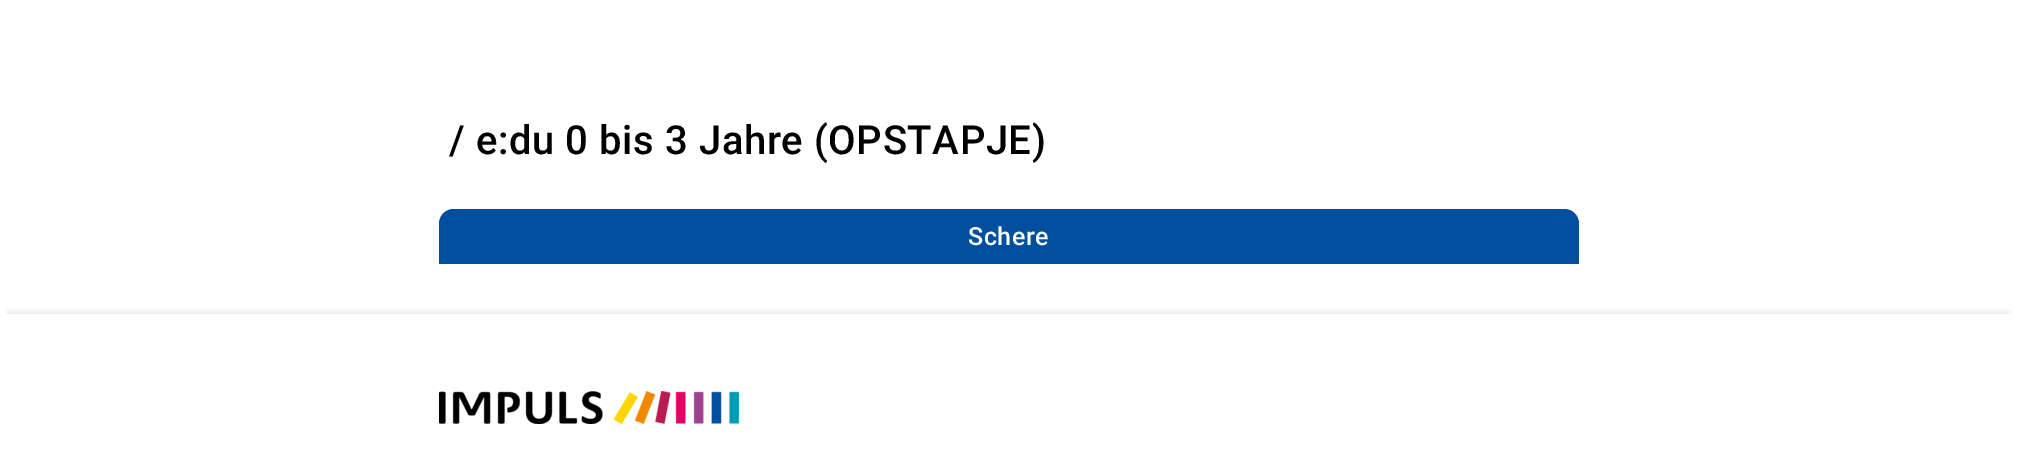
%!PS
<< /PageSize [2018 454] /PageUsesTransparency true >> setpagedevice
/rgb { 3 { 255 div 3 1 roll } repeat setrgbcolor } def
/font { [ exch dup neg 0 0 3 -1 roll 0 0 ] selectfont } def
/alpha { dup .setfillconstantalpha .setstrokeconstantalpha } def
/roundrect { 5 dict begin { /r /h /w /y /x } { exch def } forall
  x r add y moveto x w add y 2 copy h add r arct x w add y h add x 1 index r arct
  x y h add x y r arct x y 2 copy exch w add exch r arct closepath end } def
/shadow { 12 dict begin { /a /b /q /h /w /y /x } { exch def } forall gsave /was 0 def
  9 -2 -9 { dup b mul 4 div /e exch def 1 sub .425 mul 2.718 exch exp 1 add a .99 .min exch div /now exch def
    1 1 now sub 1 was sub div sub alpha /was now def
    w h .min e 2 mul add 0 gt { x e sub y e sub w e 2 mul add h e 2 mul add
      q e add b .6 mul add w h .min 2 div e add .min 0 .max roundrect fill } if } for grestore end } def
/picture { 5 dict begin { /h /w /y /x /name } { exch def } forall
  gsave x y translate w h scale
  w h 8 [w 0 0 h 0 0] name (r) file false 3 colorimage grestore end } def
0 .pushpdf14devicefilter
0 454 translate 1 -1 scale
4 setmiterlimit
255 255 255 rgb
0 0 2018 454 rectfill
0 79 159 rgb
454 209 moveto 1110 0 rlineto 8.5 0 15 6.5 15 15 rcurveto 0 40 rlineto -1140 0 rlineto 0 -40 rlineto 0 -8.5 6.5 -15 15 -15 rcurveto closepath fill
gsave
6 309 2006 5 rectclip
0 0 0 rgb
9 316 2000 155 0 5.5 0.2 shadow
grestore
(img_01.rgb) 439 391 300 33 picture
/Roboto-Medium 40 font
0 0 0 rgb
449 154 moveto 0.6 0 (/ e:du 0 bis 3 Jahre \(OPSTAPJE\)) ashow
/Roboto-Medium 25 font
255 255 255 rgb
968 245 moveto 0.6 0 (Schere) ashow
.poppdf14devicefilter showpage
